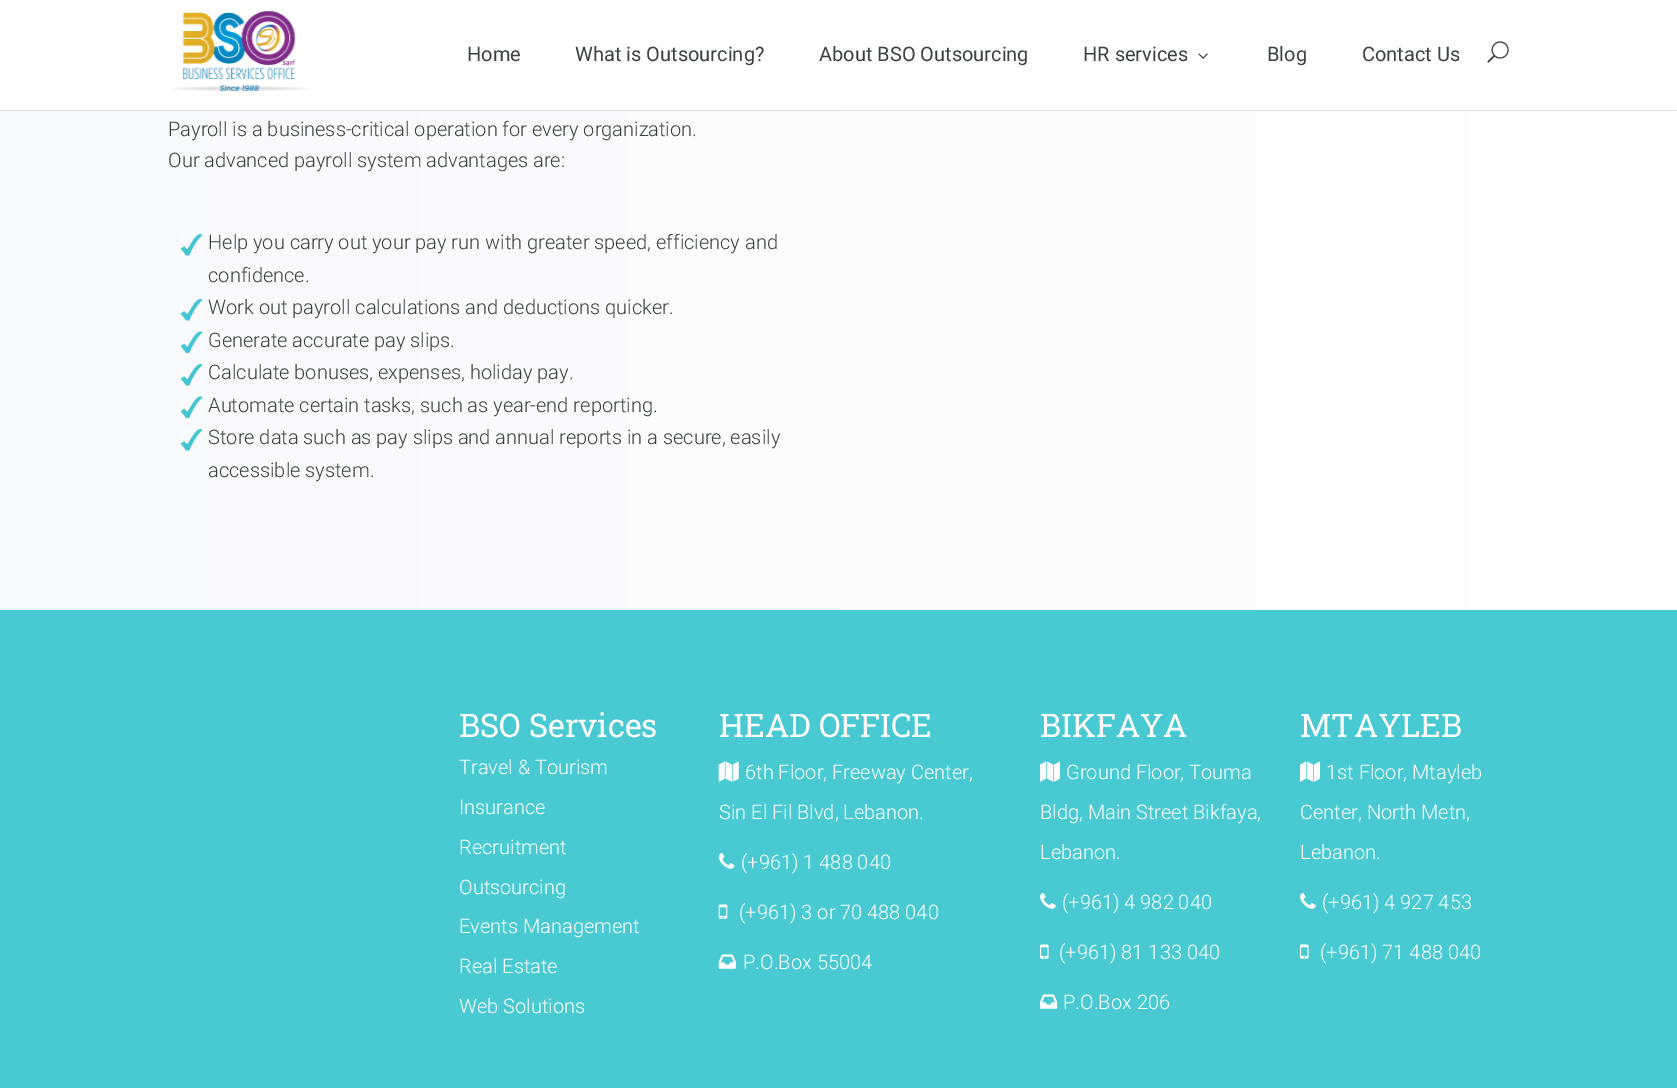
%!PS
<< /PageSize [1677 1088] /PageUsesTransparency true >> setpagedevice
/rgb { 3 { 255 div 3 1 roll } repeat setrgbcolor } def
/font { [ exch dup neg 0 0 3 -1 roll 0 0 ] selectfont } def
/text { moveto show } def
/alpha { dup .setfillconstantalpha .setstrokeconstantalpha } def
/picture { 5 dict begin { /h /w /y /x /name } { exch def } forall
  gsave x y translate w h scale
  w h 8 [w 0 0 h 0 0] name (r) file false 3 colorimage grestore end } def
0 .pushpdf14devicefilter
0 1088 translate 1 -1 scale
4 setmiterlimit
73 201 209 rgb
0 0 1677 1088 rectfill
gsave 0 110 moveto 1677 0 rlineto 0 500 rlineto -1677 0 rlineto closepath clip newpath
<< /ShadingType 2 /ColorSpace /DeviceRGB /Coords [0 271 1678 271] /Extend [true true] /Function << /FunctionType 2 /Domain [0 1] /C0 [0.973 0.976 0.984] /C1 [1 1 1] /N 1 >> >> shfill grestore
0.1 alpha
0 0 0 rgb
0 110 moveto 0 1 rlineto 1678 0 rlineto 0 -110 rlineto 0 109 rlineto closepath fill
1 alpha
255 255 255 rgb
0 0 1677 110 rectfill
(img_01.rgb) 173 10 138 82 picture
(img_02.rgb) 1198 53 10 6 picture
(img_03.rgb) 1487 41 22 22 picture
(img_04.rgb) 180 233 23 23 picture
(img_04.rgb) 180 298 23 23 picture
(img_05.rgb) 180 330 23 24 picture
(img_04.rgb) 180 363 23 23 picture
(img_05.rgb) 180 395 23 24 picture
(img_04.rgb) 180 428 23 23 picture
(img_06.rgb) 718 761 21 21 picture
(img_07.rgb) 718 853 17 16 picture
(img_08.rgb) 718 904 10 15 picture
(img_09.rgb) 718 954 18 15 picture
(img_10.rgb) 1040 761 20 21 picture
(img_11.rgb) 1040 893 16 16 picture
(img_12.rgb) 1040 944 9 15 picture
(img_13.rgb) 1040 994 18 15 picture
(img_10.rgb) 1300 761 20 21 picture
(img_11.rgb) 1300 893 16 16 picture
(img_12.rgb) 1300 944 9 15 picture
/Roboto-Regular 20 font
60 64 67 rgb
(Home) 467 61 text
(What is Outsourcing?) 575 61 text
(About BSO Outsourcing) 819 61 text
(HR services) 1083 61 text
(Blog) 1267 61 text
(Contact Us) 1362 61 text
/Roboto-Light 20 font
(Payroll is a business-critical operation for every organization.) 168 136 text
(Our advanced payroll system advantages are:) 168 167 text
(Help you carry out your pay run with greater speed, efficiency and) 208 249 text
(confidence.) 208 282 text
(Work out payroll calculations and deductions quicker.) 208 314 text
(Generate accurate pay slips.) 208 347 text
(Calculate bonuses, expenses, holiday pay.) 208 379 text
(Automate certain tasks, such as year-end reporting.) 208 412 text
(Store data such as pay slips and annual reports in a secure, easily) 208 444 text
(accessible system.) 208 477 text
/RobotoSlab-Regular 32.5 font
255 255 255 rgb
(BSO Services) 459 737 text
/Roboto-Light 20 font
(Travel & Tourism) 459 774 text
(Insurance) 459 814 text
(Recruitment) 459 854 text
(Outsourcing) 459 894 text
(Events Management) 459 933 text
(Real Estate) 459 973 text
(Web Solutions) 459 1013 text
/RobotoSlab-Regular 32.5 font
(HEAD OFFICE) 719 737 text
/Roboto-Light 20 font
(6th Floor, Freeway Center,) 745 779 text
(Sin El Fil Blvd, Lebanon.) 719 819 text
(\(+961\) 1 488 040) 741 869 text
(\(+961\) 3 or 70 488 040) 739 919 text
(P.O.Box 55004) 743 969 text
/RobotoSlab-Regular 32.5 font
(BIKFAYA) 1040 737 text
/Roboto-Light 20 font
(Ground Floor, Touma) 1066 779 text
(Bldg, Main Street Bikfaya,) 1040 819 text
(Lebanon.) 1040 859 text
(\(+961\) 4 982 040) 1062 909 text
(\(+961\) 81 133 040) 1059 959 text
(P.O.Box 206) 1063 1009 text
/RobotoSlab-Regular 32.5 font
(MTAYLEB) 1300 737 text
/Roboto-Light 20 font
(1st Floor, Mtayleb) 1326 779 text
(Center, North Metn,) 1300 819 text
(Lebanon.) 1300 859 text
(\(+961\) 4 927 453) 1322 909 text
(\(+961\) 71 488 040) 1320 959 text
.poppdf14devicefilter showpage
